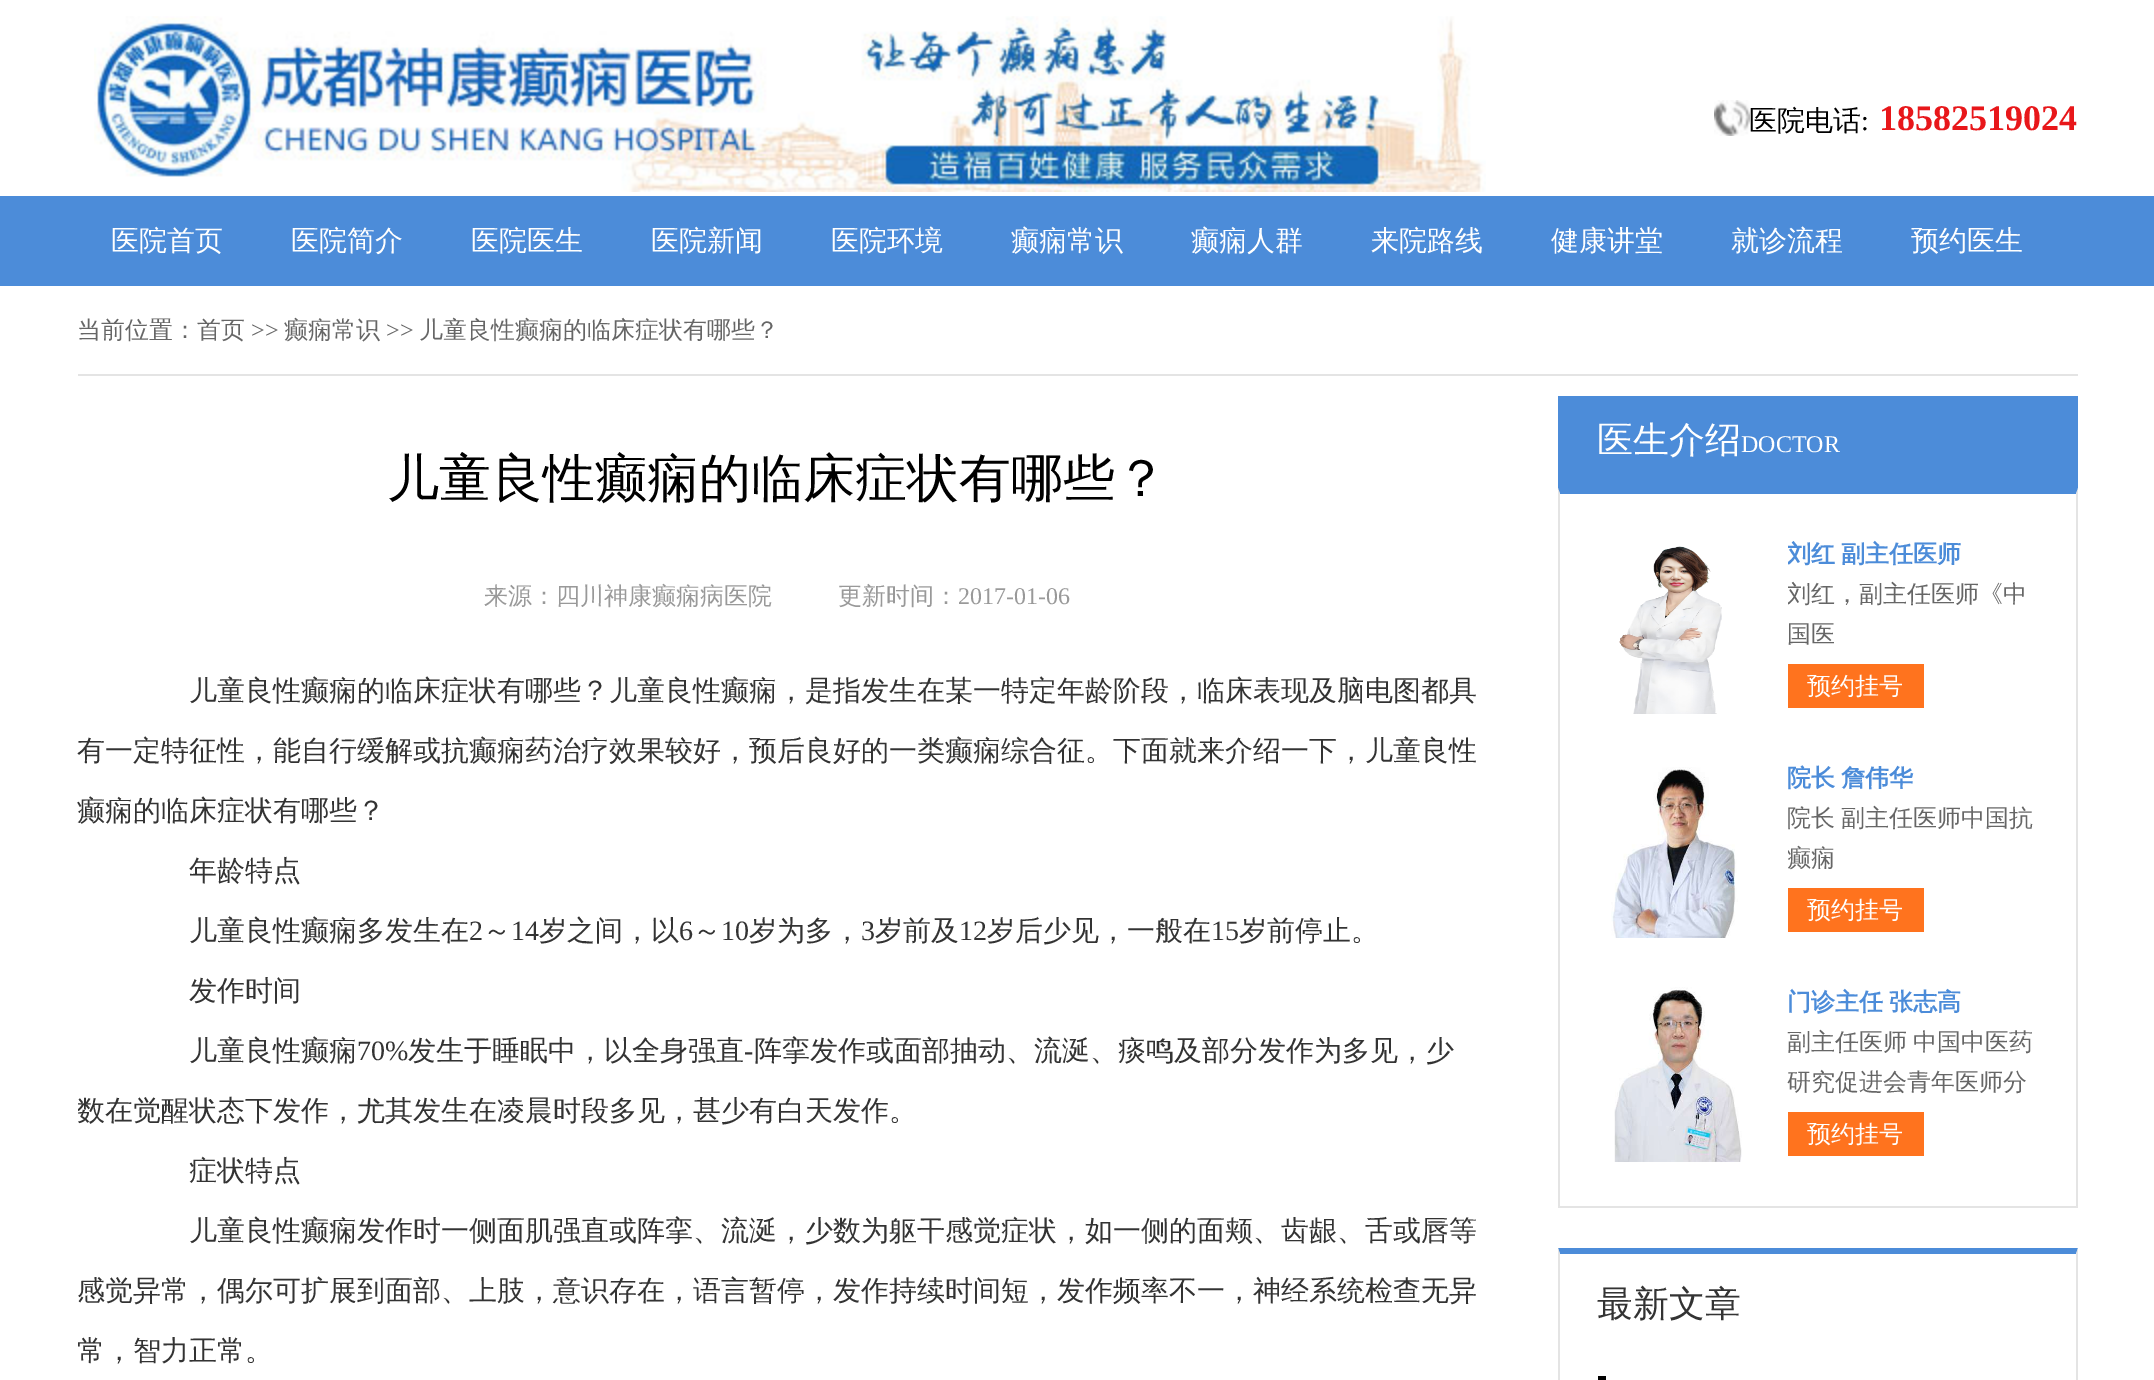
%!PS
<< /PageSize [2154 1380] >> setpagedevice
/rgb { 3 { 255 div 3 1 roll } repeat setrgbcolor } def
/font { [ exch dup neg 0 0 3 -1 roll 0 0 ] selectfont } def
/text { moveto show } def
/picture { 5 dict begin { /h /w /y /x /name } { exch def } forall
  gsave x y translate w h scale
  w h 8 [w 0 0 h 0 0] name (r) file false 3 colorimage grestore end } def
0 1380 translate 1 -1 scale
4 setmiterlimit
255 255 255 rgb
0 0 2154 1380 rectfill
(img_01.rgb) 94 16 1392 176 picture
(img_02.rgb) 1714 100 36 36 picture
76 140 217 rgb
0 196 2154 90 rectfill
228 228 228 rgb
78 374 2000 2 rectfill
76 140 217 rgb
1558 396 520 94 rectfill
1558 488 moveto 520 0 rlineto -2 6 rlineto -516 0 rlineto closepath fill
228 228 228 rgb
2078 488 moveto 0 720 rlineto -2 -2 rlineto 0 -712 rlineto closepath fill
1558 1206 520 2 rectfill
1558 1208 moveto 0 -720 rlineto 2 6 rlineto 0 712 rlineto closepath fill
(img_03.rgb) 1619 546 103 168 picture
255 115 30 rgb
1788 664 136 44 rectfill
(img_04.rgb) 1611 767 127 171 picture
1788 888 136 44 rectfill
(img_05.rgb) 1614 987 128 175 picture
1788 1112 136 44 rectfill
76 140 217 rgb
1558 1248 moveto 520 0 rlineto -2 6 rlineto -516 0 rlineto closepath fill
228 228 228 rgb
2078 1248 moveto 0 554 rlineto -2 -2 rlineto 0 -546 rlineto closepath fill
1558 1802 moveto 0 -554 rlineto 2 6 rlineto 0 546 rlineto closepath fill
0 0 0 rgb
1598 1376 8 4 rectfill
/WenQuanYiZenHei-Medium 28 font
(医院电话) 1749 130 text
/LiberationSerif-Regular 28 font
(:) 1861 130 text
/LiberationSerif-Bold 36 font
232 23 26 rgb
(18582519024) 1879 130 text
/WenQuanYiZenHei-Medium 28 font
255 255 255 rgb
(医院首页) 111 250 text
(医院简介) 291 250 text
(医院医生) 471 250 text
(医院新闻) 651 250 text
(医院环境) 831 250 text
(癫痫常识) 1011 250 text
(癫痫人群) 1191 250 text
(来院路线) 1371 250 text
(健康讲堂) 1551 250 text
(就诊流程) 1731 250 text
(预约医生) 1911 250 text
/WenQuanYiZenHei-Medium 24 font
102 102 102 rgb
(当前位置：首页) 77 338 text
/LiberationSerif-Regular 24 font
(>>) 251 338 text
/WenQuanYiZenHei-Medium 24 font
(癫痫常识) 284 338 text
/LiberationSerif-Regular 24 font
(>>) 386 338 text
/WenQuanYiZenHei-Medium 24 font
(儿童良性癫痫的临床症状有哪些？) 419 338 text
/WenQuanYiZenHei-Medium 52 font
0 0 0 rgb
(儿童良性癫痫的临床症状有哪些？) 387 496 text
/WenQuanYiZenHei-Medium 24 font
153 153 153 rgb
(来源：四川神康癫痫病医院) 484 604 text
(更新时间：) 838 604 text
/LiberationSerif-Regular 24 font
(2017-01-06) 958 604 text
/WenQuanYiZenHei-Medium 28 font
51 51 51 rgb
(儿童良性癫痫的临床症状有哪些？儿童良性癫痫，是指发生在某一特定年龄阶段，临床表现及脑电图都具) 189 700 text
(有一定特征性，能自行缓解或抗癫痫药治疗效果较好，预后良好的一类癫痫综合征。下面就来介绍一下，儿童良性) 77 760 text
(癫痫的临床症状有哪些？) 77 820 text
(年龄特点) 189 880 text
(儿童良性癫痫多发生在) 189 940 text
/LiberationSerif-Regular 28 font
(2) 469 940 text
/WenQuanYiZenHei-Medium 28 font
(～) 483 940 text
/LiberationSerif-Regular 28 font
(14) 511 940 text
/WenQuanYiZenHei-Medium 28 font
(岁之间，以) 539 940 text
/LiberationSerif-Regular 28 font
(6) 679 940 text
/WenQuanYiZenHei-Medium 28 font
(～) 693 940 text
/LiberationSerif-Regular 28 font
(10) 721 940 text
/WenQuanYiZenHei-Medium 28 font
(岁为多，) 749 940 text
/LiberationSerif-Regular 28 font
(3) 861 940 text
/WenQuanYiZenHei-Medium 28 font
(岁前及) 875 940 text
/LiberationSerif-Regular 28 font
(12) 959 940 text
/WenQuanYiZenHei-Medium 28 font
(岁后少见，一般在) 987 940 text
/LiberationSerif-Regular 28 font
(15) 1211 940 text
/WenQuanYiZenHei-Medium 28 font
(岁前停止。) 1239 940 text
(发作时间) 189 1000 text
(儿童良性癫痫) 189 1060 text
/LiberationSerif-Regular 28 font
(70%) 357 1060 text
/WenQuanYiZenHei-Medium 28 font
(发生于睡眠中，以全身强直) 408 1060 text
/LiberationSerif-Regular 28 font
(-) 744 1060 text
/WenQuanYiZenHei-Medium 28 font
(阵挛发作或面部抽动、流涎、痰鸣及部分发作为多见，少) 754 1060 text
gsave
78 396 2000 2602 rectclip
(数在觉醒状态下发作，尤其发生在凌晨时段多见，甚少有白天发作。) 77 1120 text
grestore
(症状特点) 189 1180 text
(儿童良性癫痫发作时一侧面肌强直或阵挛、流涎，少数为躯干感觉症状，如一侧的面颊、齿龈、舌或唇等) 189 1240 text
(感觉异常，偶尔可扩展到面部、上肢，意识存在，语言暂停，发作持续时间短，发作频率不一，神经系统检查无异) 77 1300 text
gsave
78 396 2000 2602 rectclip
(常，智力正常。) 77 1360 text
grestore
/WenQuanYiZenHei-Medium 36 font
255 255 255 rgb
(医生介绍) 1597 452 text
/LiberationSerif-Regular 24 font
(DOCTOR) 1741 452 text
gsave
1788 534 250 174 rectclip
/WenQuanYiZenHei-Bold 24 font
76 140 217 rgb
1787 562 moveto -1 0 32 (刘红 副主任医师) widthshow
/WenQuanYiZenHei-Medium 24 font
102 102 102 rgb
(刘红，副主任医师《中) 1787 602 text
grestore
/WenQuanYiZenHei-Medium 24 font
102 102 102 rgb
(国医) 1787 642 text
255 255 255 rgb
(预约挂号) 1807 694 text
/WenQuanYiZenHei-Bold 24 font
76 140 217 rgb
1787 786 moveto -1 0 32 (院长 詹伟华) widthshow
/WenQuanYiZenHei-Medium 24 font
102 102 102 rgb
1787 826 moveto -1 0 32 (院长 副主任医师中国抗) widthshow
gsave
1788 758 250 174 rectclip
(癫痫) 1787 866 text
grestore
255 255 255 rgb
(预约挂号) 1807 918 text
/WenQuanYiZenHei-Bold 24 font
76 140 217 rgb
1787 1010 moveto -1 0 32 (门诊主任 张志高) widthshow
/WenQuanYiZenHei-Medium 24 font
102 102 102 rgb
1787 1050 moveto -1 0 32 (副主任医师 中国中医药) widthshow
(研究促进会青年医师分) 1787 1090 text
255 255 255 rgb
(预约挂号) 1807 1142 text
/WenQuanYiZenHei-Medium 36 font
51 51 51 rgb
(最新文章) 1597 1316 text
showpage
